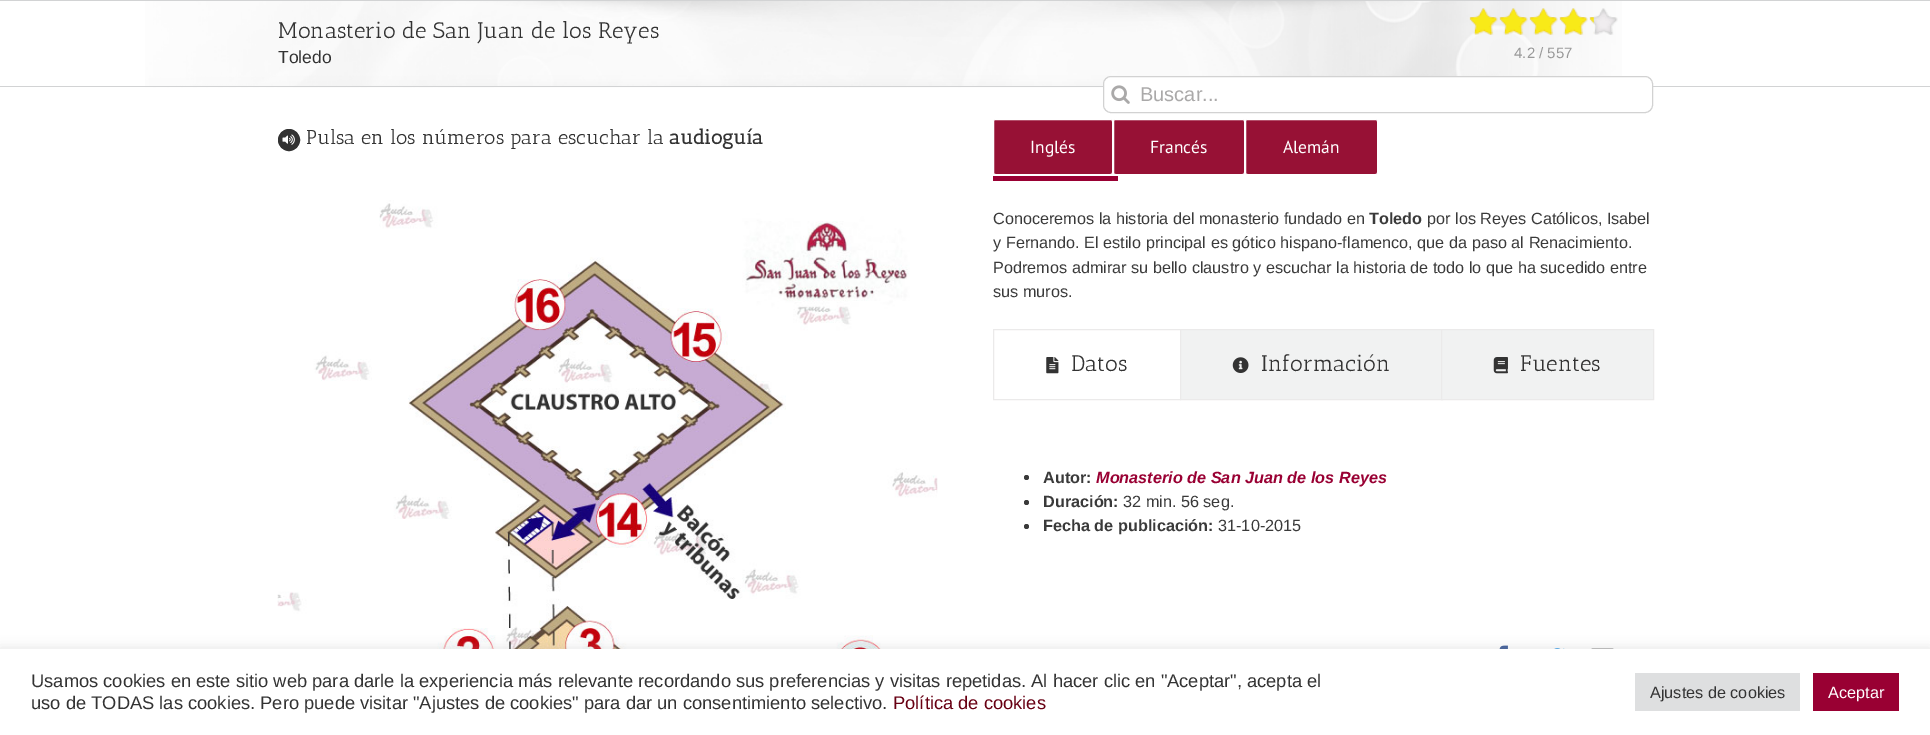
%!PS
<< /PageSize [1930 735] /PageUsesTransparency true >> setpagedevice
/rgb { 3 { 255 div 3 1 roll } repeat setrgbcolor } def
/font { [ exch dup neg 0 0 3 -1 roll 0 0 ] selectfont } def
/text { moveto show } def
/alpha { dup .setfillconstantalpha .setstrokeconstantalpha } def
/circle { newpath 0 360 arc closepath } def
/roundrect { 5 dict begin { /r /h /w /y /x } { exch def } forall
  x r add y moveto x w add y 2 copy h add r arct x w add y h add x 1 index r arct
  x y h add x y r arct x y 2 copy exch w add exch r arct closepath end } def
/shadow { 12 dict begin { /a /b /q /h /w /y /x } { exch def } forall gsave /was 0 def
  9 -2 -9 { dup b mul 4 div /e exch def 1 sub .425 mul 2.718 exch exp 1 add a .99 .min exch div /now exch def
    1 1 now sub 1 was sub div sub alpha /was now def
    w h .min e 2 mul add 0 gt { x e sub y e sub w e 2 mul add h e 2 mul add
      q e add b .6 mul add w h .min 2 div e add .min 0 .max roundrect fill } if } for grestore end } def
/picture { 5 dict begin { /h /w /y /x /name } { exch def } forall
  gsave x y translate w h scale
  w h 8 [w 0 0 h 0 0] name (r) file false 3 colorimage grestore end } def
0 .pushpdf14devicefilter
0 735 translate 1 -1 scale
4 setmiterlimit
255 255 255 rgb
0 0 1930 735 rectfill
(img_01.rgb) 145 1 1477 87 picture
210 211 212 rgb
0 0 1930 1 rectfill
0 86 1930 1 rectfill
(img_02.rgb) 1470 8 148 27 picture
(img_03.rgb) 1469 8 125 27 picture
255 255 255 rgb
1103.5 76.5 549 36 7.5 roundrect gsave fill grestore
210 210 210 rgb
stroke
(img_04.rgb) 1111 85 19 19 picture
51 51 51 rgb
289 140 10.5 circle gsave fill grestore
stroke
(img_05.rgb) 282 134 13 11 picture
(img_06.rgb) 277 200 661 449 picture
151 17 53 rgb
993.5 119.5 119 55 2 roundrect gsave fill grestore
255 255 255 rgb
stroke
151 17 53 rgb
1113.5 119.5 131 55 2 roundrect gsave fill grestore
255 255 255 rgb
stroke
151 17 53 rgb
1245.5 119.5 132 55 2 roundrect gsave fill grestore
255 255 255 rgb
stroke
153 0 51 rgb
993 176 125 5 rectfill
235 234 234 rgb
993.5 329.5 187 70 rectstroke
(img_07.rgb) 1046 357 13 17 picture
241 242 242 rgb
1181 330 260 69 rectfill
235 234 234 rgb
1180.5 329.5 262 70 rectstroke
(img_08.rgb) 1232 357 17 16 picture
241 242 242 rgb
1441.5 329.5 moveto 212 0 rlineto 0 70 rlineto -212 0 rlineto closepath gsave fill grestore
235 234 234 rgb
stroke
(img_09.rgb) 1493 357 15 17 picture
58 58 58 rgb
1026.5 477.5 2.5 circle fill
1026.5 502.5 2.5 circle fill
1026.5 526.5 2.5 circle fill
(img_10.rgb) 1499 645 9 4 picture
(img_11.rgb) 1554 648 11 1 picture
(img_12.rgb) 1591 648 23 1 picture
172 171 171 rgb
0 648 1930 86 0 6 0.3 shadow
255 255 255 rgb
0 649 1930 86 rectfill
222 223 224 rgb
1635 673 165 38 rectfill
153 0 51 rgb
1813 673 86 38 rectfill
/AnticSlab-Regular 22.5 font
51 51 51 rgb
(Monasterio de San Juan de los Reyes) 278 38 text
/LiberationSans-Regular 17.5 font
(Toledo) 278 63 text
/LiberationSans-Regular 15 font
153 153 153 rgb
(4.2 / 557) 1514 58 text
/LiberationSans-Regular 20 font
170 169 169 rgb
(Buscar...) 1140 101 text
/AnticSlab-Regular 20 font
51 51 51 rgb
(Pulsa en los números para escuchar la) 306 144 text
/AnticSlab-Bold 20 font
(audioguía) 669 144 text
/PTSans-Regular 17.5 font
255 255 255 rgb
(Inglés) 1030 153 text
(Francés) 1150 153 text
(Alemán) 1283 153 text
/LiberationSans-Regular 16.25 font
58 58 58 rgb
(Conoceremos la historia del monasterio fundado en) 993 224 text
/LiberationSans-Bold 16.25 font
(Toledo) 1369 224 text
/LiberationSans-Regular 16.25 font
(por los Reyes Católicos, Isabel) 1427 224 text
(y Fernando. El estilo principal es gótico hispano-flamenco, que da paso al Renacimiento.) 993 248 text
(Podremos admirar su bello claustro y escuchar la historia de todo lo que ha sucedido entre) 993 273 text
(sus muros.) 993 297 text
/AnticSlab-Regular 22.5 font
51 51 51 rgb
(Datos) 1071 371 text
(Información) 1261 371 text
(Fuentes) 1520 371 text
/LiberationSans-Bold 16.25 font
58 58 58 rgb
(Autor:) 1043 483 text
/LiberationSans-BoldItalic 16.25 font
153 0 51 rgb
(Monasterio de San Juan de los Reyes) 1096 483 text
/LiberationSans-Bold 16.25 font
58 58 58 rgb
(Duración:) 1043 507 text
/LiberationSans-Regular 16.25 font
(32 min. 56 seg.) 1123 507 text
/LiberationSans-Bold 16.25 font
(Fecha de publicación:) 1043 531 text
/LiberationSans-Regular 16.25 font
(31-10-2015) 1218 531 text
/LiberationSans-Regular 18.33 font
51 51 51 rgb
(Usamos cookies en este sitio web para darle la experiencia más relevante recordando sus preferencias y visitas repetidas. Al hacer clic en "Aceptar", acepta el) 31 687 text
(uso de TODAS las cookies. Pero puede visitar "Ajustes de cookies" para dar un consentimiento selectivo.) 31 709 text
104 0 19 rgb
(Política de cookies) 893 709 text
/LiberationSans-Regular 16.25 font
51 51 51 rgb
(Ajustes de cookies) 1650 698 text
255 255 255 rgb
(Aceptar) 1828 698 text
.poppdf14devicefilter showpage
